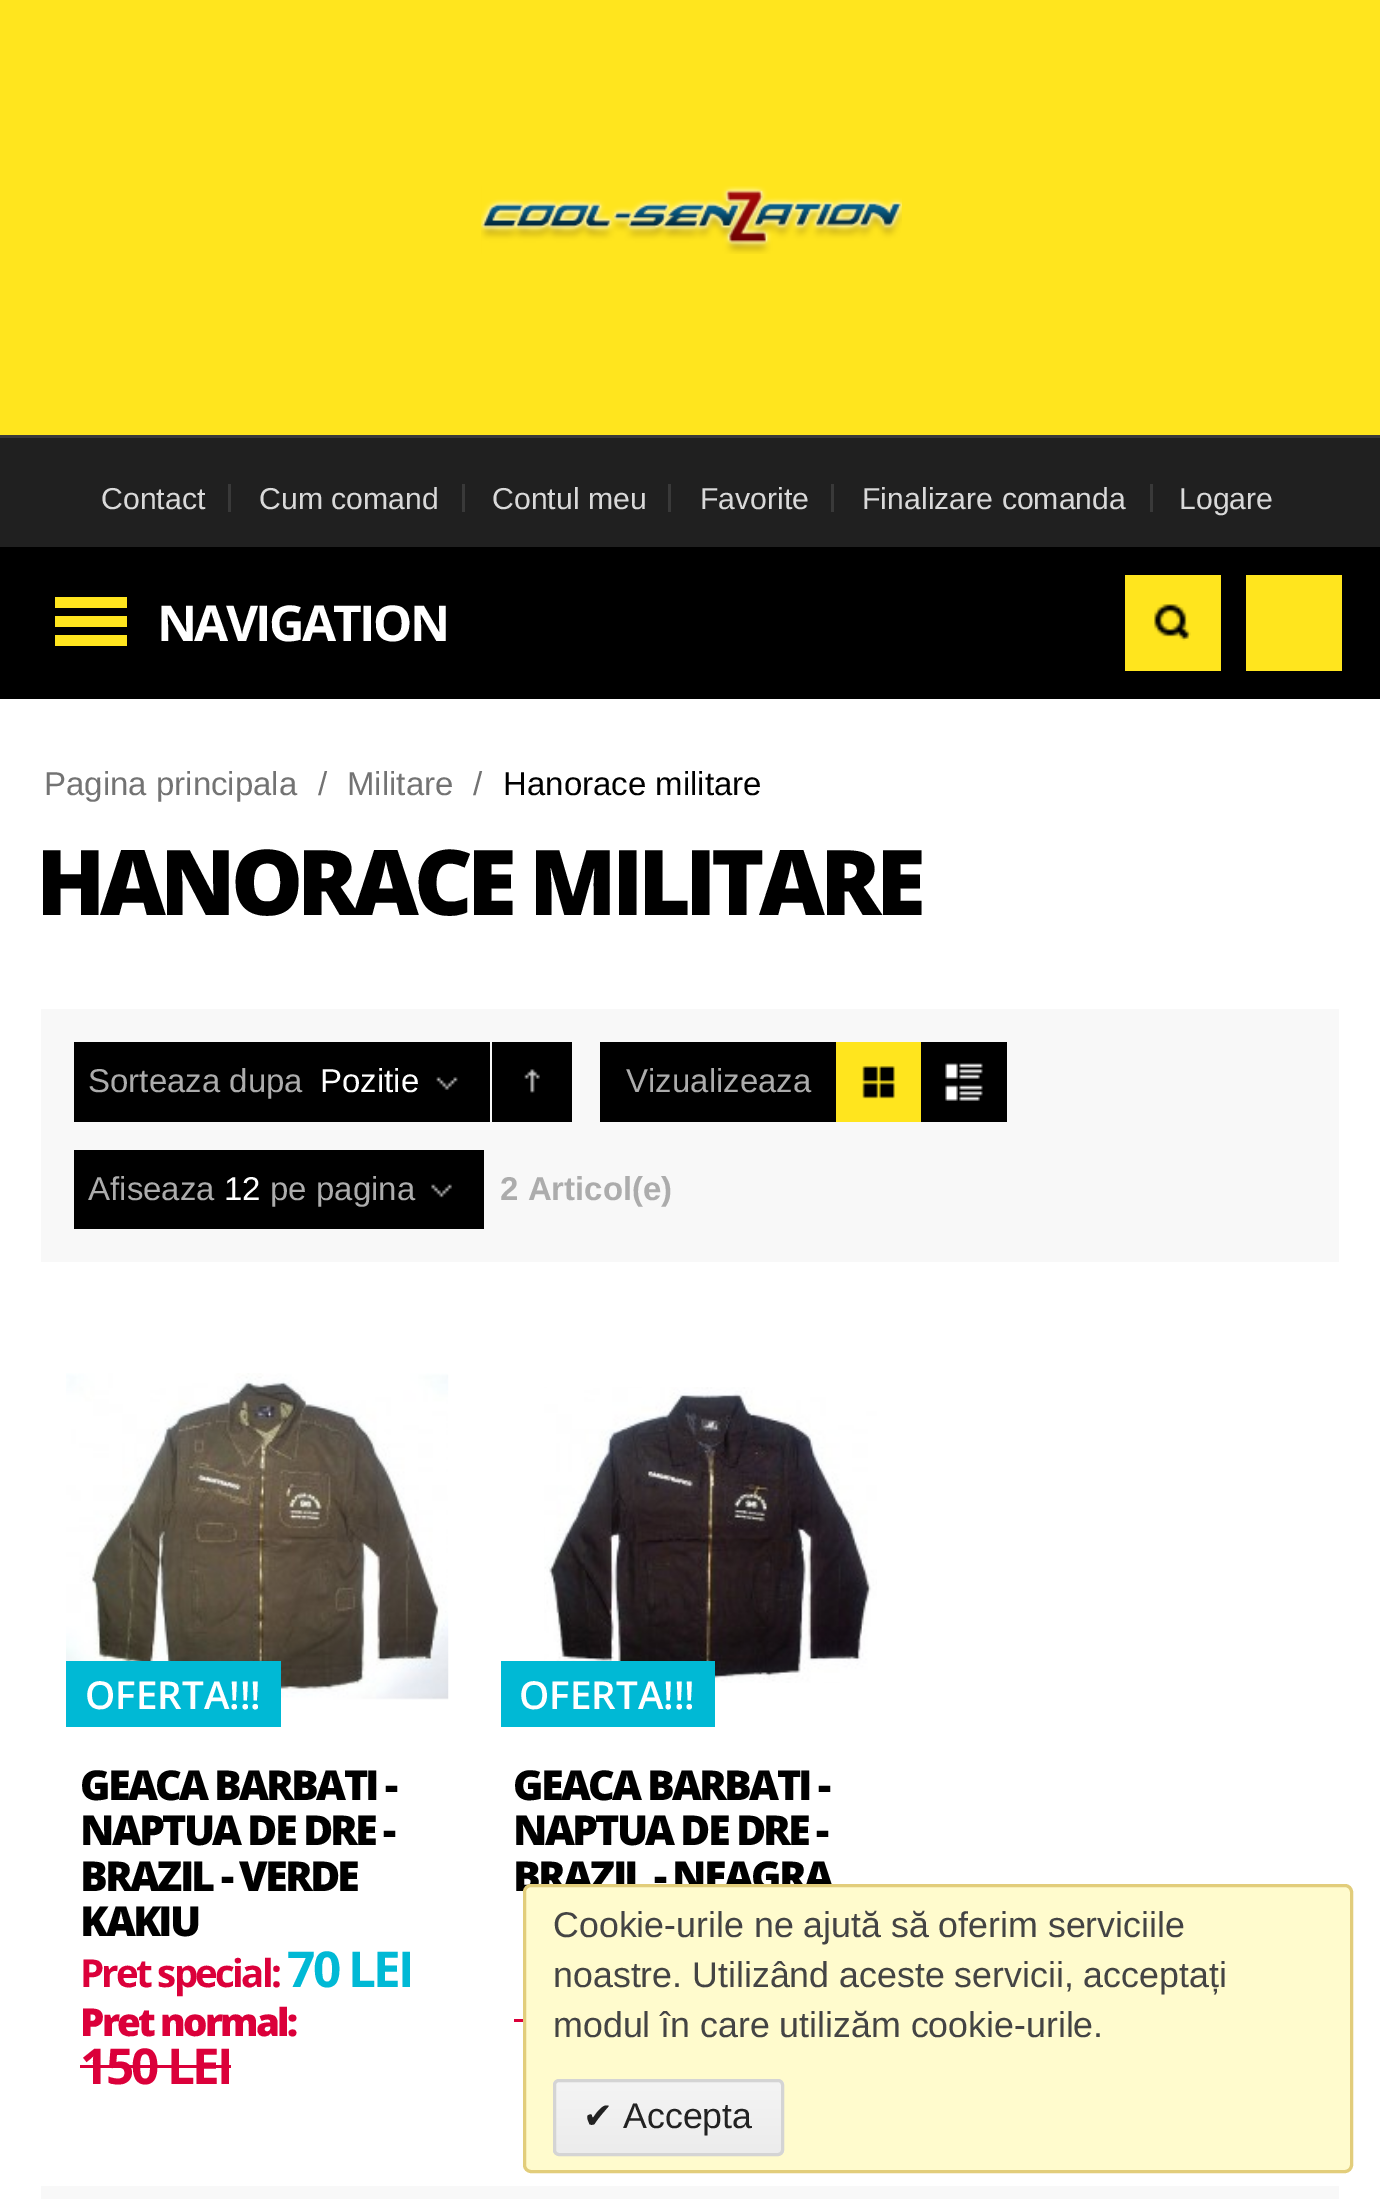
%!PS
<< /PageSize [1380 2199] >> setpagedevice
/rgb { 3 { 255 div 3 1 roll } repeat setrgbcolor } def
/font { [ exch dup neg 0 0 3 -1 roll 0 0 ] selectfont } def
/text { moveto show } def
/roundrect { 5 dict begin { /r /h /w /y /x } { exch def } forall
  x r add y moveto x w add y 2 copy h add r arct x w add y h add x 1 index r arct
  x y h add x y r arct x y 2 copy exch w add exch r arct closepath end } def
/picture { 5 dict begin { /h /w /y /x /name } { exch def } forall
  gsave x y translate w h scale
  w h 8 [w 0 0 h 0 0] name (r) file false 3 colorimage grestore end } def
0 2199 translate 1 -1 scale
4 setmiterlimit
0 0 0 rgb
0 0 1380 2199 rectfill
255 229 30 rgb
0 0 1380 435 rectfill
(img_01.rgb) 481 186 421 68 picture
32 32 32 rgb
0 438 1380 109 rectfill
57 57 57 rgb
0 435 1380 3 rectfill
228 484 3 28 rectfill
462 484 3 28 rectfill
668 484 3 28 rectfill
831 484 3 28 rectfill
1150 484 3 28 rectfill
255 229 30 rgb
1246 575 96 96 rectfill
55 597 72 11 rectfill
55 616 72 11 rectfill
55 635 72 11 rectfill
1125 575 96 96 rectfill
(img_02.rgb) 1154 604 37 37 picture
255 255 255 rgb
0 699 1380 1500 rectfill
248 248 248 rgb
41 1009 1298 253 rectfill
0 0 0 rgb
74 1042 416 80 rectfill
(img_03.rgb) 436 1077 22 13 picture
492 1042 80 80 rectfill
(img_04.rgb) 524 1069 16 24 picture
600 1042 407 80 rectfill
255 229 30 rgb
836 1042 85 80 rectfill
(img_05.rgb) 862 1066 33 33 picture
(img_06.rgb) 945 1063 38 38 picture
0 0 0 rgb
74 1150 410 79 rectfill
(img_07.rgb) 431 1184 21 14 picture
(img_08.rgb) 66 1373 383 327 picture
0 185 213 rgb
66 1661 215 66 rectfill
219 0 58 rgb
80 2065 151 3 rectfill
(img_09.rgb) 544 1387 333 296 picture
0 185 213 rgb
501 1661 214 66 rectfill
219 0 58 rgb
514 2019 9 3 rectfill
248 248 248 rgb
41 2186 1298 13 rectfill
/LiberationSans-Regular 30.25 font
217 217 217 rgb
(Contact) 101 509 text
(Cum comand) 259 509 text
(Contul meu) 492 509 text
(Favorite) 700 509 text
(Finalizare comanda) 862 509 text
(Logare) 1179 509 text
/OpenSans-Bold 49.5 font
255 255 255 rgb
157 641 moveto -2.75 0 (NAVIGATION) ashow
/LiberationSans-Regular 33 font
115 115 115 rgb
(Pagina principala) 44 795 text
(/) 318 795 text
(Militare) 347 795 text
(/) 473 795 text
0 0 0 rgb
(Hanorace militare) 503 795 text
/OpenSans-ExtraBold 90.75 font
36 915 moveto -5.5 0 (HANORACE MILITARE) ashow
/LiberationSans-Regular 33 font
172 172 172 rgb
(Sorteaza dupa) 88 1092 text
255 255 255 rgb
(Pozitie) 320 1092 text
172 172 172 rgb
(Vizualizeaza) 626 1092 text
(Afiseaza) 88 1200 text
255 255 255 rgb
(12) 224 1200 text
172 172 172 rgb
(pe pagina) 270 1200 text
/LiberationSans-Bold 33 font
(2 Articol\(e\)) 500 1200 text
/OpenSans-SemiBold 38.5 font
255 255 255 rgb
(OFERTA!!!) 85 1709 text
/OpenSans-ExtraBold 41.25 font
0 0 0 rgb
80 1800 moveto -2.75 0 (GEACA BARBATI -) ashow
80 1845 moveto -2.75 0 (NAPTUA DE DRE -) ashow
80 1891 moveto -2.75 0 (BRAZIL - VERDE) ashow
80 1936 moveto -2.75 0 (KAKIU) ashow
/OpenSans-Bold 38.5 font
219 0 58 rgb
80 1987 moveto -2.75 0 (Pret special:) ashow
/OpenSans-Bold 49.5 font
0 185 213 rgb
287 1987 moveto -2.75 0 (70 LEI) ashow
/OpenSans-ExtraBold 38.5 font
219 0 58 rgb
80 2036 moveto -2.75 0 (Pret normal:) ashow
/OpenSans-Bold 49.5 font
80 2084 moveto -2.75 0 (150 LEI) ashow
/OpenSans-SemiBold 38.5 font
255 255 255 rgb
(OFERTA!!!) 519 1709 text
/OpenSans-ExtraBold 41.25 font
0 0 0 rgb
513 1800 moveto -2.75 0 (GEACA BARBATI -) ashow
513 1845 moveto -2.75 0 (NAPTUA DE DRE -) ashow
513 1891 moveto -2.75 0 (BRAZIL - NEAGRA) ashow
255 251 205 rgb
524.5 1885.5 827 286 6.5 roundrect gsave fill grestore
226 205 123 rgb
3 setlinewidth
stroke
/LiberationSans-Regular 35.75 font
68 68 68 rgb
(Cookie-urile ne ajută să oferim serviciile) 553 1937 text
(noastre. Utilizând aceste servicii, acceptați) 553 1987 text
(modul în care utilizăm cookie-urile.) 553 2037 text
gsave
553 2079 231 77 6 roundrect clip newpath
gsave 553 2082 moveto 231 0 rlineto 0 71 rlineto -231 0 rlineto closepath clip newpath
<< /ShadingType 2 /ColorSpace /DeviceRGB /Coords [668 2082 668 2153] /Extend [true true] /Function << /FunctionType 2 /Domain [0 1] /C0 [0.957 0.957 0.957] /C1 [0.925 0.925 0.925] /N 1 >> >> shfill grestore
grestore
212 212 212 rgb
554.5 2080.5 228 74 4.5 roundrect stroke
/DejaVuSans-Regular 35.75 font
34 34 34 rgb
(✔) 583 2128 text
/LiberationSans-Regular 35.75 font
(Accepta) 623 2128 text
showpage
